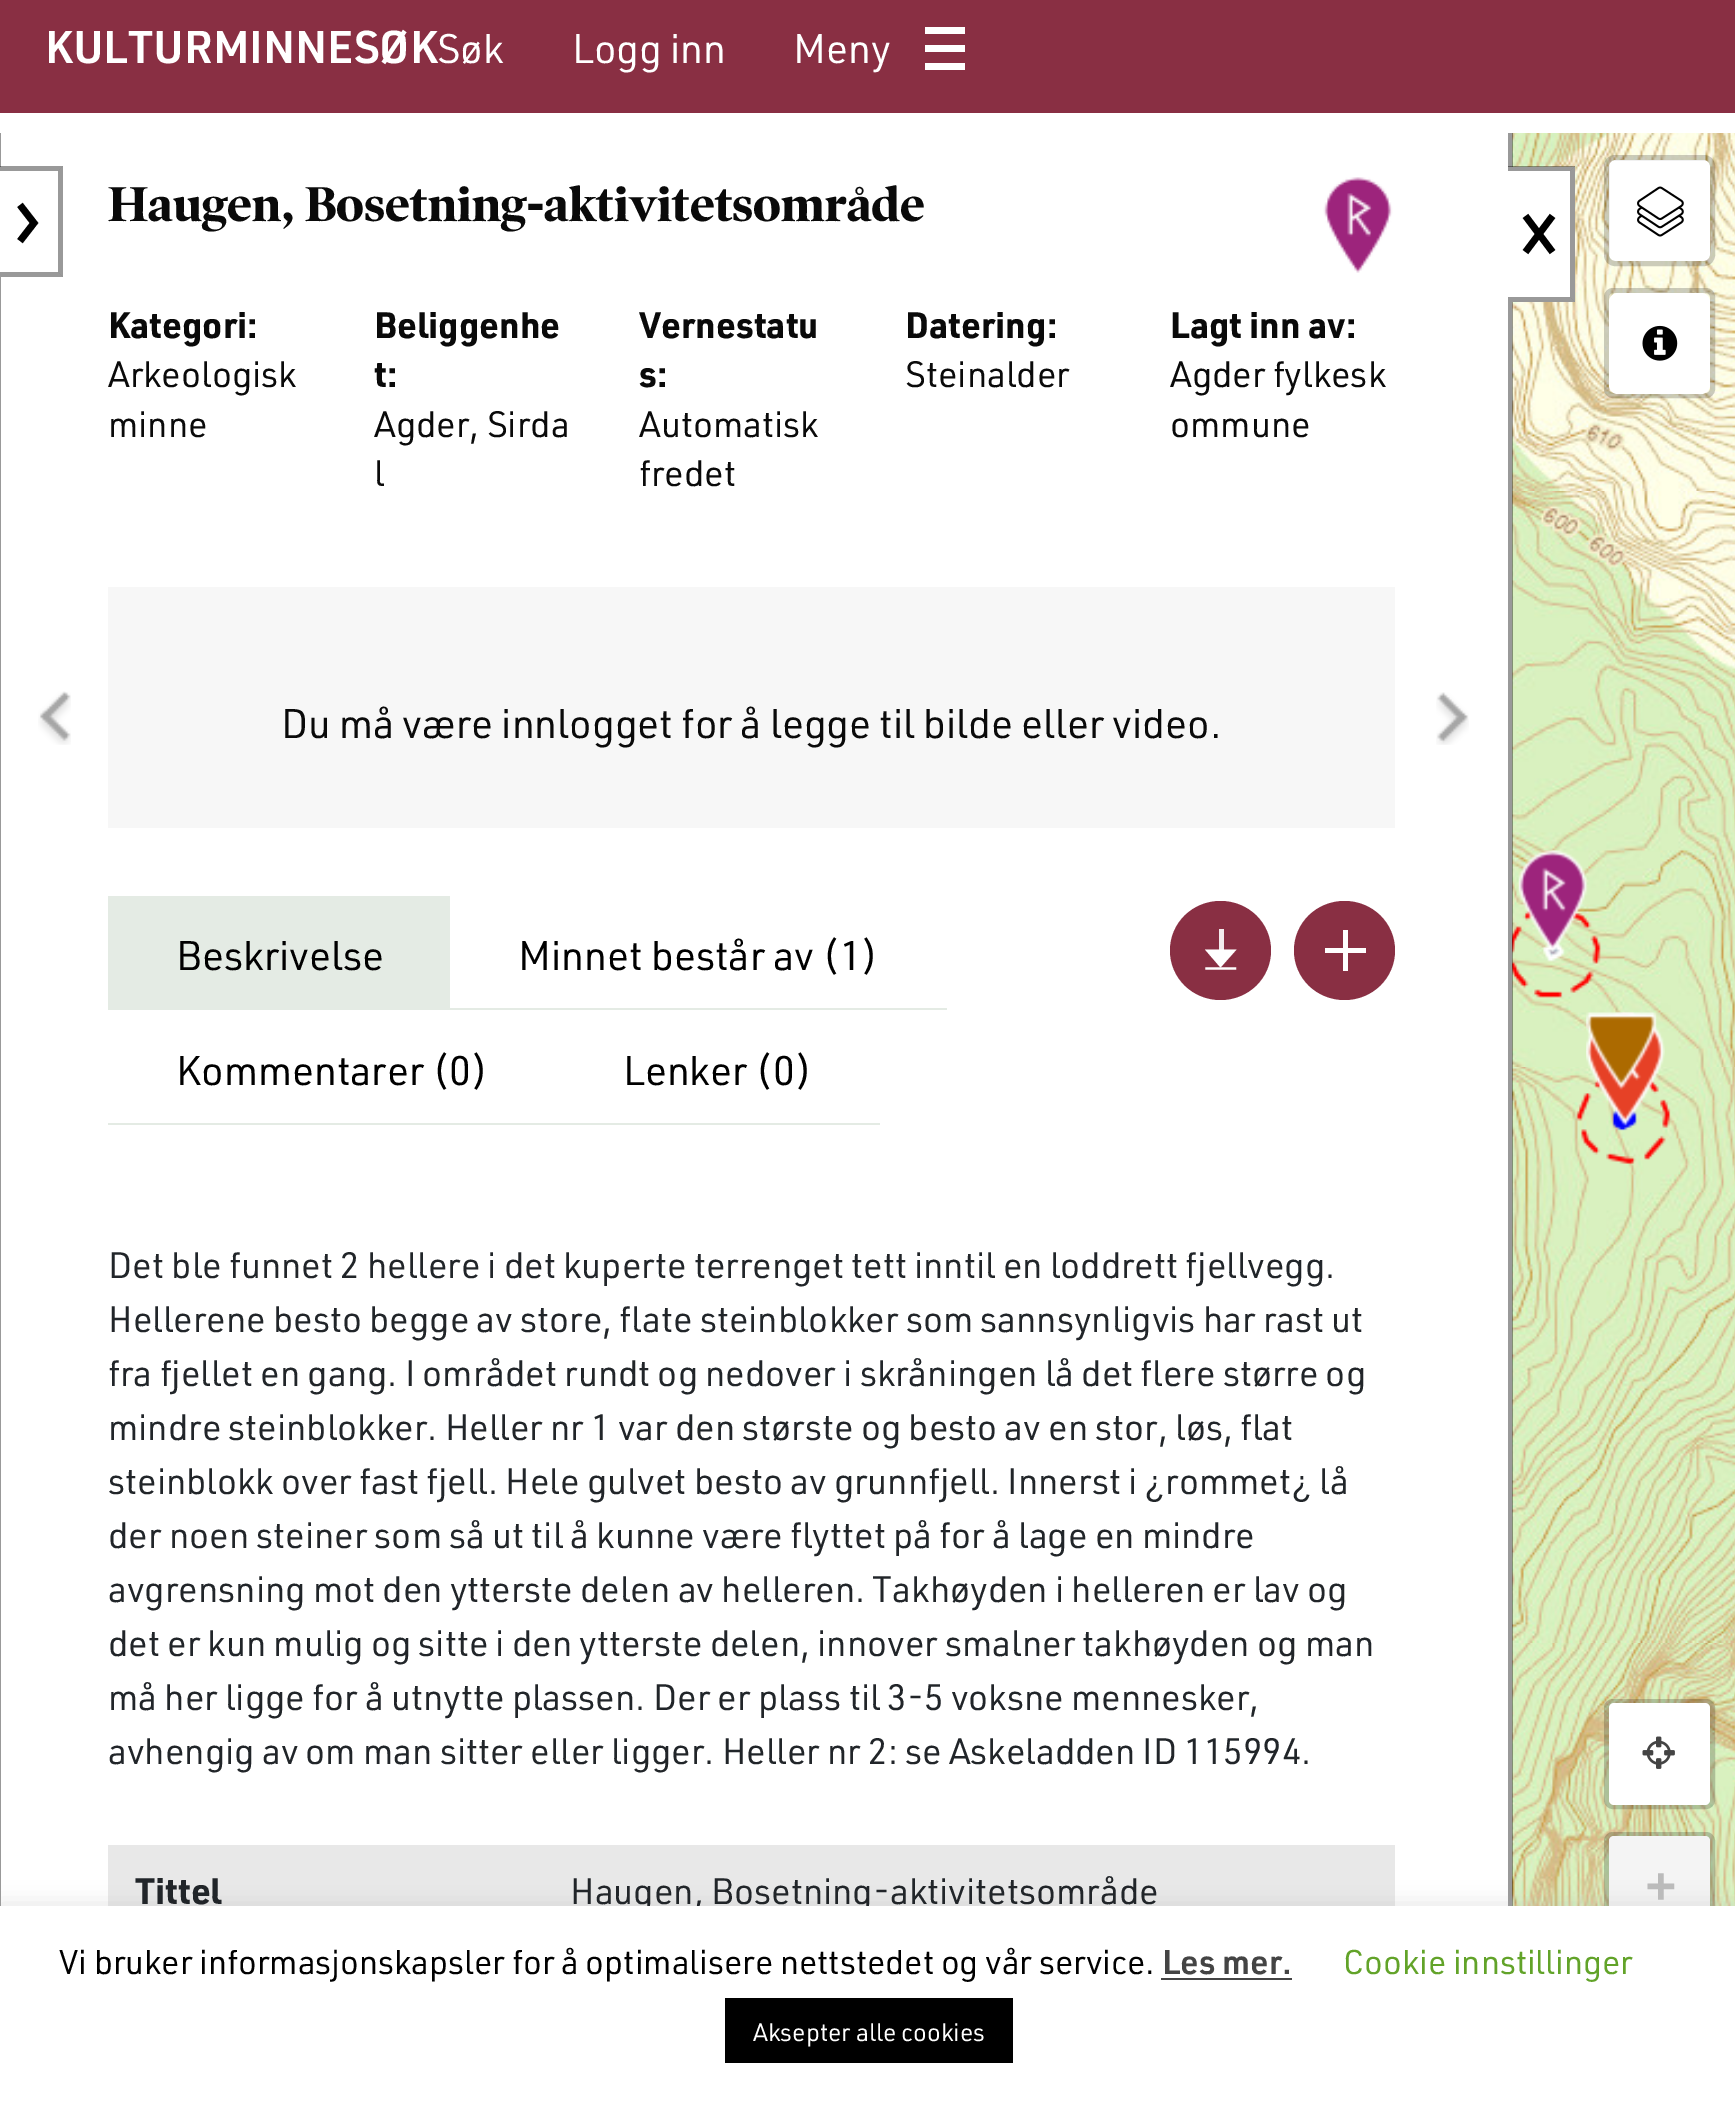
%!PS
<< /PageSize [1735 2101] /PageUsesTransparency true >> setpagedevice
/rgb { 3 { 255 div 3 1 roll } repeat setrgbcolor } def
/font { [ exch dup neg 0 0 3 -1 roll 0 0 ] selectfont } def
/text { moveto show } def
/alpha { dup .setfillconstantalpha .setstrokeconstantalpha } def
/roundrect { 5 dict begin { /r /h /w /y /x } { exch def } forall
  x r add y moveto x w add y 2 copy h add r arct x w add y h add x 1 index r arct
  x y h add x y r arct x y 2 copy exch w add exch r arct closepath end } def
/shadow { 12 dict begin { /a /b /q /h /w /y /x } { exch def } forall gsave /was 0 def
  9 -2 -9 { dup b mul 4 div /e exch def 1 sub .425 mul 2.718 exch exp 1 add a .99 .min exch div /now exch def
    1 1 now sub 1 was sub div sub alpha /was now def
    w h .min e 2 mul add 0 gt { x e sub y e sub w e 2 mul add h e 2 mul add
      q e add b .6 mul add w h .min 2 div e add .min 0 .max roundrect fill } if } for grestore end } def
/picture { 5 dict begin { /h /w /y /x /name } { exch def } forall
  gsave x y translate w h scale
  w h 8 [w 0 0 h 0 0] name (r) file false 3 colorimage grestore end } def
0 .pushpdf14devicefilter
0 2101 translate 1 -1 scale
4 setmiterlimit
255 255 255 rgb
0 0 1735 2101 rectfill
137 47 67 rgb
0 0 1735 113 rectfill
255 255 255 rgb
925 45 40 7 rectfill
925 27 40 7 rectfill
925 63 40 7 rectfill
153 153 153 rgb
0 133 1 1773 rectfill
255 255 255 rgb
0 167 1 110 rectfill
0.4 alpha
0 0 0 rgb
-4 166 moveto 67 0 rlineto -5 5 rlineto -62 0 rlineto closepath fill
63 166 moveto 0 111 rlineto -5 -5 rlineto 0 -101 rlineto closepath fill
63 277 moveto -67 0 rlineto 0 -5 rlineto 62 0 rlineto closepath fill
1 alpha
6.8 setlinewidth
20 241 moveto 14 -18 rlineto -14 -18 rlineto stroke
(img_04.rgb) 1512 133 223 358 picture
(img_05.rgb) 1512 491 223 576 picture
(img_06.rgb) 1512 1067 223 576 picture
(img_07.rgb) 1512 1643 223 263 picture
(img_12.rgb) 1512 908 159 256 picture
0.4 alpha
1508 133 5 1773 rectfill
1 alpha
(img_01.rgb) 1323 177 70 96 picture
255 255 255 rgb
1508 167 67 135 rectfill
0.4 alpha
0 0 0 rgb
1508 166 moveto 67 0 rlineto -5 5 rlineto -62 0 rlineto closepath fill
1575 166 moveto 0 136 rlineto -5 -5 rlineto 0 -126 rlineto closepath fill
1575 302 moveto -67 0 rlineto 0 -5 rlineto 62 0 rlineto closepath fill
1 alpha
1552.5 216 moveto -13.5 18 rlineto 13.5 18 rlineto 1525.5 252 moveto 13.5 -18 rlineto -13.5 -18 rlineto stroke
(img_02.rgb) 38 691 33 54 picture
247 247 247 rgb
108 587 1287 241 rectfill
(img_03.rgb) 1436 692 33 53 picture
137 47 67 rgb
1220.5 901 moveto 28 0 50.5 22 50.5 49.5 rcurveto 0 27.5 -22.5 49.5 -50.5 49.5 rcurveto -28 0 -50.5 -22 -50.5 -49.5 rcurveto 0 -27.5 22.5 -49.5 50.5 -49.5 rcurveto closepath fill
255 255 255 rgb
1220.5 967.5 moveto -15.5 -18 rlineto 31.5 0 rlineto closepath eofill
0.9 alpha
1219 929 5 29 rectfill
1 alpha
2.2 setlinewidth
2 setlinecap
1206.5 968.5 moveto 28.5 0 rlineto stroke
137 47 67 rgb
1344.5 901 moveto 28 0 50.5 22 50.5 49.5 rcurveto 0 27.5 -22.5 49.5 -50.5 49.5 rcurveto -28 0 -50.5 -22 -50.5 -49.5 rcurveto 0 -27.5 22.5 -49.5 50.5 -49.5 rcurveto closepath fill
255 255 255 rgb
1325 948 41 5 rectfill
1343 930 5 41 rectfill
228 235 228 rgb
108 896 342 114 rectfill
450 1008 497 2 rectfill
108 1123 772 2 rectfill
232 232 232 rgb
108 1845 1287 61 rectfill
(img_08.rgb) 1518 850 70 103 picture
(img_11.rgb) 1590 1031 70 88 picture
(img_09.rgb) 1586 1012 79 114 picture
(img_10.rgb) 1586 1012 71 78 picture
255 255 255 rgb
1609 160 101 101 7 roundrect fill
0.2 alpha
0 0 0 rgb
5 setlinewidth
0 setlinecap
1606.5 157.5 106 106 8.5 roundrect stroke
1 alpha
(img_13.rgb) 1637 186 47 51 picture
0.2 alpha
1606.5 290.5 106 105 6.5 roundrect stroke
1 alpha
255 255 255 rgb
1609 293 101 101 9 roundrect fill
(img_14.rgb) 1642 325 36 36 picture
0.2 alpha
0 0 0 rgb
1606.5 1701.5 106 105 6.5 roundrect stroke
1 alpha
255 255 255 rgb
1609 1703 101 102 5 roundrect fill
(img_15.rgb) 1642 1736 33 33 picture
0.2 alpha
0 0 0 rgb
1606.5 1834.5 106 206 6.5 roundrect stroke
1 alpha
244 244 244 rgb
1614 1836 moveto 91 0 rlineto 3 0 5 2 5 5 rcurveto 0 96 rlineto -101 0 rlineto 0 -96 rlineto 0 -3 2 -5 5 -5 rcurveto closepath fill
172 171 171 rgb
0 1904 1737 195 0 11 0.3 shadow
/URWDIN-SemiBold 45 font
255 255 255 rgb
(KULTURMINNESØK) 45 63 text
/URWDIN-Regular 40.5 font
(Søk) 437 63 text
(Logg inn) 572 63 text
(Meny) 793 63 text
/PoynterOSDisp-Bold 49.5 font
10 10 10 rgb
(Haugen, Bosetning-aktivitetsområde) 108 221 text
/URWDIN-Bold 36 font
(Kategori:) 108 338 text
/URWDIN-Regular 36 font
(Arkeologisk) 108 387 text
(minne) 108 437 text
/URWDIN-Bold 36 font
(Beliggenhe) 374 338 text
(t:) 374 387 text
/URWDIN-Regular 36 font
(Agder, Sirda) 374 437 text
(l) 374 486 text
/URWDIN-Bold 36 font
(Vernestatu) 639 338 text
(s:) 639 387 text
/URWDIN-Regular 36 font
(Automatisk) 639 437 text
(fredet) 639 486 text
/URWDIN-Bold 36 font
(Datering:) 905 338 text
/URWDIN-Regular 36 font
(Steinalder) 905 387 text
/URWDIN-Bold 36 font
(Lagt inn av:) 1170 338 text
/URWDIN-Regular 36 font
(Agder fylkesk) 1170 387 text
(ommune) 1170 437 text
/URWDIN-Regular 40.5 font
(Du må være innlogget for å legge til bilde eller video.) 281 738 text
0 0 0 rgb
(Beskrivelse) 176 970 text
(Minnet består av \(1\)) 518 970 text
(Kommentarer \(0\)) 176 1085 text
(Lenker \(0\)) 623 1085 text
/URWDIN-Regular 36 font
33 37 41 rgb
(Det ble funnet 2 hellere i det kuperte terrenget tett inntil en loddrett fjellvegg.) 108 1278 text
(Hellerene besto begge av store, flate steinblokker som sannsynligvis har rast ut) 108 1332 text
(fra fjellet en gang. I området rundt og nedover i skråningen lå det flere større og) 108 1386 text
(mindre steinblokker. Heller nr 1 var den største og besto av en stor, løs, flat) 108 1440 text
(steinblokk over fast fjell. Hele gulvet besto av grunnfjell. Innerst i ¿rommet¿ lå) 108 1494 text
(der noen steiner som så ut til å kunne være flyttet på for å lage en mindre) 108 1548 text
(avgrensning mot den ytterste delen av helleren. Takhøyden i helleren er lav og) 108 1602 text
(det er kun mulig og sitte i den ytterste delen, innover smalner takhøyden og man) 108 1656 text
(må her ligge for å utnytte plassen. Der er plass til 3-5 voksne mennesker,) 108 1710 text
(avhengig av om man sitter eller ligger. Heller nr 2: se Askeladden ID 115994.) 108 1764 text
/URWDIN-Bold 36 font
(Tittel) 135 1904 text
/URWDIN-Regular 36 font
(Haugen, Bosetning-aktivitetsområde) 570 1904 text
/DejaVuSansMono-Bold 49.5 font
187 187 187 rgb
(+) 1646 1902 text
255 255 255 rgb
0 1906 1735 195 rectfill
/URWDIN-Regular 33.75 font
0 0 0 rgb
(Vi bruker informasjonskapsler for å optimalisere nettstedet og vår service.) 59 1974 text
/URWDIN-SemiBold 33.75 font
68 68 68 rgb
(Les mer.) 1162 1974 text
1161 1978 131 2 rectfill
/URWDIN-Regular 33.75 font
98 163 41 rgb
(Cookie innstillinger) 1343 1974 text
0 0 0 rgb
725 1998 288 65 rectfill
/URWDIN-Regular 24.75 font
255 255 255 rgb
(Aksepter alle cookies) 753 2041 text
.poppdf14devicefilter showpage
